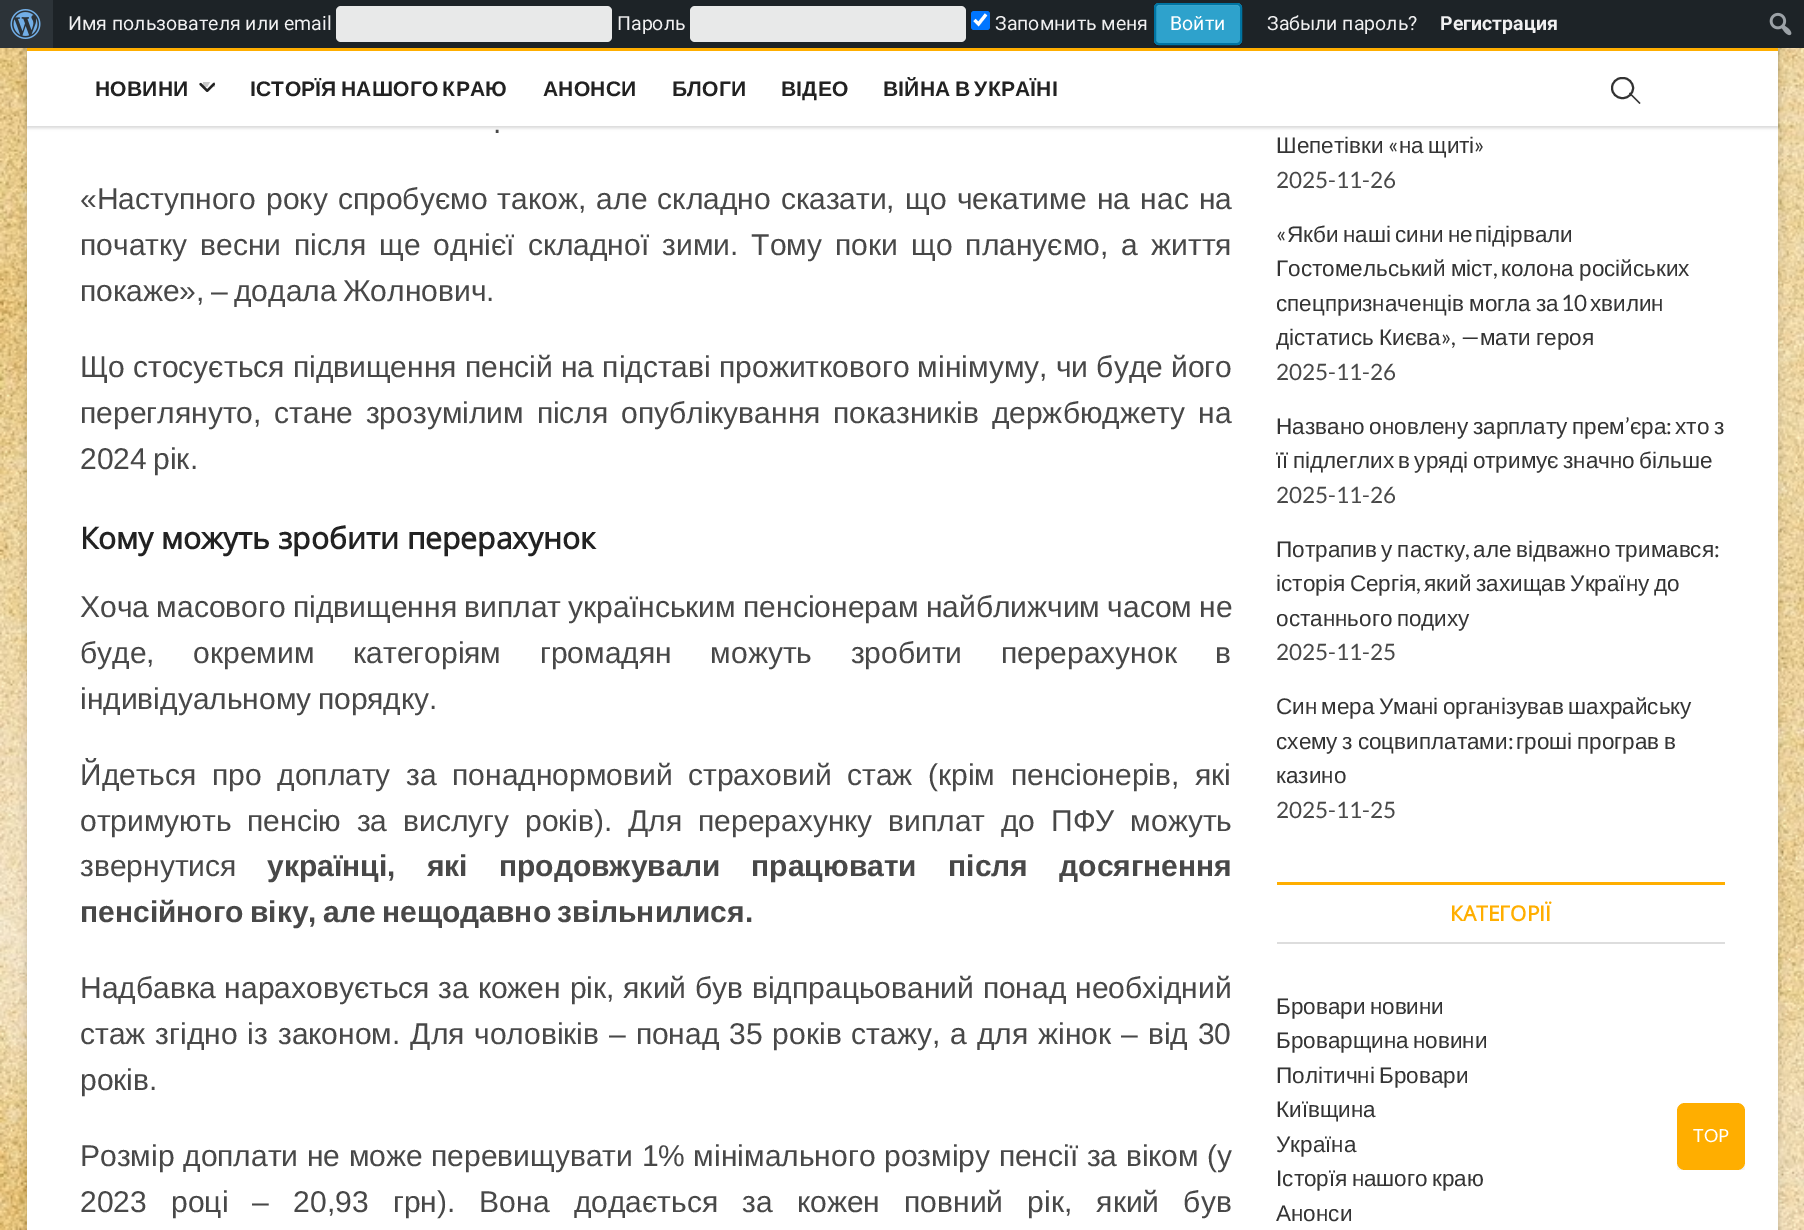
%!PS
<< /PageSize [1804 1230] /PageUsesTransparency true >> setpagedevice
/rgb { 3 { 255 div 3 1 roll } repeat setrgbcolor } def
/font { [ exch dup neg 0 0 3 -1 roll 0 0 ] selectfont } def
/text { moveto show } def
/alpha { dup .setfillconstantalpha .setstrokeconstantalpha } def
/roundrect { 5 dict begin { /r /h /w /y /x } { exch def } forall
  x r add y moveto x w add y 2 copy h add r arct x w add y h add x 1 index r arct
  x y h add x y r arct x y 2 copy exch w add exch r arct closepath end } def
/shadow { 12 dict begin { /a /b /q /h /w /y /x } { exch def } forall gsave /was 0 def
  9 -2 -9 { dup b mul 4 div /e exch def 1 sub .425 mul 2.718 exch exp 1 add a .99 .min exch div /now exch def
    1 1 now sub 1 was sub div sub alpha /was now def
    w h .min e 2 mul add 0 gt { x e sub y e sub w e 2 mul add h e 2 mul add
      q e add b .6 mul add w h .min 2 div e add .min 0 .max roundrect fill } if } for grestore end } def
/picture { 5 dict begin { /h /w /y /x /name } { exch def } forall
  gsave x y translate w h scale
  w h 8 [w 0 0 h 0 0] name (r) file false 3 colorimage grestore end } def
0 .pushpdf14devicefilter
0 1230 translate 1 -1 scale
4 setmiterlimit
255 255 255 rgb
0 0 1804 1230 rectfill
(img_01.rgb) 0 48 1804 1182 picture
0 0 0 rgb
27 -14 1751 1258 0 4.5 0.15 shadow
255 255 255 rgb
27 51 1751 1179 rectfill
gsave
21 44 moveto 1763 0 rlineto 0 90 rlineto -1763 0 rlineto closepath 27 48 moveto 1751 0 rlineto 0 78 rlineto -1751 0 rlineto closepath eoclip newpath
0 0 0 rgb
27 50 1751 78 0 1.5 0.15 shadow
grestore
29 35 39 rgb
53 0 1751 48 rectfill
44 51 56 rgb
0 0 53 48 rectfill
(img_02.rgb) 10 9 31 30 picture
232 233 233 rgb
336 6 276 36 5 roundrect fill
690 6 276 36 5 roundrect fill
0 117 255 rgb
971 11 19 19 3 roundrect fill
255 255 255 rgb
3.1 setlinewidth
974.5 20 moveto 4 4 rlineto 7.5 -9.5 rlineto stroke
25 30 33 rgb
1154 43 moveto 0 2 2 4 5 4 rcurveto 78 0 rlineto 3 0 5 -2 5 -5 rcurveto 0 -2 rlineto 0 3 -2 5 -4 5 rcurveto -80 0 rlineto -2 0 -3 -1 -4 -2 rcurveto closepath fill
46 162 204 rgb
1154 3 88 42 5 roundrect fill
83 181 217 rgb
1158 6 moveto 67 0 rlineto 18 0 15 -3 15 14 rcurveto 0 23 rlineto 1 0 1 -1 1 -2 rcurveto 0 -33 rlineto 0 -2 -1 -3 -3 -3 rcurveto -80 0 rlineto -2 0 -3 1 -3 3 rcurveto 0 1 rlineto 0 -2 1 -3 3 -3 rcurveto closepath fill
0 116 162 rgb
2 setlinewidth
1155 4 86 40 4 roundrect stroke
(img_03.rgb) 1769 12 23 24 picture
0.7 alpha
255 255 255 rgb
1777 51 1 75 rectfill
1 alpha
255 174 0 rgb
27 48 1751 3 rectfill
(img_04.rgb) 199 82 16 10 picture
51 51 51 rgb
1612 78 21 20 10 roundrect stroke
1629 93.5 moveto 1 -1 rlineto 10.5 10.5 rlineto -1 1 rlineto closepath fill
255 174 0 rgb
1277 882 448 3 rectfill
221 221 221 rgb
1277 942 448 2 rectfill
gsave
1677 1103 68 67 rectclip
0 0 0 rgb
1677 1106 68 67 8 2 0.08 shadow
grestore
255 174 0 rgb
1677 1103 68 67 8 roundrect fill
/Roboto-Regular 19.5 font
240 240 241 rgb
(Имя пользователя или email) 68 30 text
(Пароль) 617 30 text
(Запомнить меня) 995 30 text
255 255 255 rgb
(Войти) 1170 30 text
240 240 241 rgb
(Забыли пароль?) 1267 30 text
/Roboto-Bold 19.5 font
(Регистрация) 1440 30 text
/LiberationSans-Bold 21 font
34 34 34 rgb
95 96 moveto 0.25 0 (НОВИНИ) ashow
250 96 moveto -2 0 32 0.25 0 (ІСТОРЇЯ НАШОГО КРАЮ) awidthshow
543 96 moveto 0.25 0 (АНОНСИ) ashow
672 96 moveto 0.25 0 (БЛОГИ) ashow
781 96 moveto 0.25 0 (ВІДЕО) ashow
883 96 moveto -2 0 32 0.25 0 (ВІЙНА В УКРАЇНІ) awidthshow
/LiberationSans-Regular 30 font
72 72 72 rgb
493 133 moveto -2 0 32 (.) widthshow
80 209 moveto 1.9 0 32 («Наступного року спробуємо також, але складно сказати, що чекатиме на нас на) widthshow
80 255 moveto 4.75 0 32 (початку весни після ще однієї складної зими. Тому поки що плануємо, а життя) widthshow
80 301 moveto -2 0 32 (покаже», – додала Жолнович.) widthshow
80 377 moveto -0.1 0 32 (Що стосується підвищення пенсій на підставі прожиткового мінімуму, чи буде його) widthshow
80 423 moveto 4.5 0 32 (переглянуто, стане зрозумілим після опублікування показників держбюджету на) widthshow
80 469 moveto -2 0 32 (2024 рік.) widthshow
/OpenSans-Bold 30 font
34 34 34 rgb
(Кому можуть зробити перерахунок) 80 549 text
/LiberationSans-Regular 30 font
72 72 72 rgb
80 617 moveto -1 0 32 (Хоча масового підвищення виплат українським пенсіонерам найближчим часом не) widthshow
80 663 moveto 30.25 0 32 (буде, окремим категоріям громадян можуть зробити перерахунок в) widthshow
80 709 moveto -2 0 32 (індивідуальному порядку.) widthshow
80 785 moveto 7.25 0 32 (Йдеться про доплату за понаднормовий страховий стаж \(крім пенсіонерів, які) widthshow
80 831 moveto 7.5 0 32 (отримують пенсію за вислугу років\). Для перерахунку виплат до ПФУ можуть) widthshow
(звернутися) 80 876 text
/LiberationSans-Bold 30 font
267 876 moveto 23 0 32 (українці, які продовжували працювати після досягнення) widthshow
80 922 moveto -2 0 32 (пенсійного віку, але нещодавно звільнилися.) widthshow
/LiberationSans-Regular 30 font
80 998 moveto 0.5 0 32 (Надбавка нараховується за кожен рік, який був відпрацьований понад необхідний) widthshow
80 1044 moveto 1.6 0 32 (стаж згідно із законом. Для чоловіків – понад 35 років стажу, а для жінок – від 30) widthshow
(років.) 80 1090 text
80 1166 moveto 0.25 0 32 (Розмір доплати не може перевищувати 1% мінімального розміру пенсії за віком \(у) widthshow
80 1212 moveto 15.9 0 32 (2023 році – 20,93 грн\). Вона додається за кожен повний рік, який був) widthshow
/LiberationSans-Regular 22.5 font
52 52 52 rgb
(Шепетівки) 1276 153 text
/Lato-Regular 22.5 font
(«) 1388 153 text
/LiberationSans-Regular 22.5 font
(на) 1399 153 text
(щиті) 1428 153 text
/Lato-Regular 22.5 font
(») 1474 153 text
72 72 72 rgb
(2025-11-26) 1276 188 text
52 52 52 rgb
(«) 1276 242 text
/LiberationSans-Regular 22.5 font
1287 242 moveto -2 0 32 (Якби наші сини не) widthshow
(підірвали) 1475 242 text
1276 276 moveto -1 0 32 (Гостомельський міст) widthshow
/Lato-Regular 22.5 font
(,) 1493 276 text
/LiberationSans-Regular 22.5 font
1501 276 moveto -1 0 32 (колона російських) widthshow
1276 311 moveto -1 0 32 (спецпризначенців могла за) widthshow
/Lato-Regular 22.5 font
(10) 1561 311 text
/LiberationSans-Regular 22.5 font
(хвилин) 1590 311 text
1276 345 moveto -1 0 32 (дістатись Києва) widthshow
/Lato-Regular 22.5 font
(», —) 1441 345 text
/LiberationSans-Regular 22.5 font
1480 345 moveto -1 0 32 (мати героя) widthshow
/Lato-Regular 22.5 font
72 72 72 rgb
(2025-11-26) 1276 380 text
/LiberationSans-Regular 22.5 font
52 52 52 rgb
1276 434 moveto -1.5 0 32 (Названо оновлену зарплату прем) widthshow
/Lato-Regular 22.5 font
(’) 1625 434 text
/LiberationSans-Regular 22.5 font
(єра) 1630 434 text
/Lato-Regular 22.5 font
(:) 1666 434 text
/LiberationSans-Regular 22.5 font
1675 434 moveto -1.5 0 32 (хто з) widthshow
1276 468 moveto -2 0 32 (її підлеглих в уряді отримує значно більше) widthshow
/Lato-Regular 22.5 font
72 72 72 rgb
(2025-11-26) 1276 503 text
/LiberationSans-Regular 22.5 font
52 52 52 rgb
1276 557 moveto -1.5 0 32 (Потрапив у пастку) widthshow
/Lato-Regular 22.5 font
(,) 1465 557 text
/LiberationSans-Regular 22.5 font
1473 557 moveto -1.5 0 32 (але відважно тримався) widthshow
/Lato-Regular 22.5 font
(:) 1714 557 text
/LiberationSans-Regular 22.5 font
1276 591 moveto -1.5 0 32 (історія Сергія) widthshow
/Lato-Regular 22.5 font
(,) 1416 591 text
/LiberationSans-Regular 22.5 font
1424 591 moveto -1.5 0 32 (який захищав Україну до) widthshow
1276 626 moveto -2 0 32 (останнього подиху) widthshow
/Lato-Regular 22.5 font
72 72 72 rgb
(2025-11-25) 1276 660 text
/LiberationSans-Regular 22.5 font
52 52 52 rgb
1276 714 moveto -2 0 32 (Син мера Умані організував шахрайську) widthshow
1276 749 moveto -1.5 0 32 (схему з соцвиплатами) widthshow
/Lato-Regular 22.5 font
(:) 1508 749 text
/LiberationSans-Regular 22.5 font
1516 749 moveto -1.5 0 32 (гроші програв в) widthshow
(казино) 1276 783 text
/Lato-Regular 22.5 font
72 72 72 rgb
(2025-11-25) 1276 818 text
/OpenSans-Bold 21 font
255 174 0 rgb
(КАТЕГОРІЇ) 1450 921 text
/LiberationSans-Regular 22.5 font
52 52 52 rgb
1276 1014 moveto -2 0 32 (Бровари новини) widthshow
1276 1048 moveto -2 0 32 (Броварщина новини) widthshow
1276 1083 moveto -2 0 32 (Політичні Бровари) widthshow
(Київщина) 1276 1117 text
(Україна) 1276 1152 text
1276 1186 moveto -2 0 32 (Історїя нашого краю) widthshow
(Анонси) 1276 1221 text
/Lato-Regular 18 font
255 255 255 rgb
(TOP) 1693 1142 text
.poppdf14devicefilter showpage
